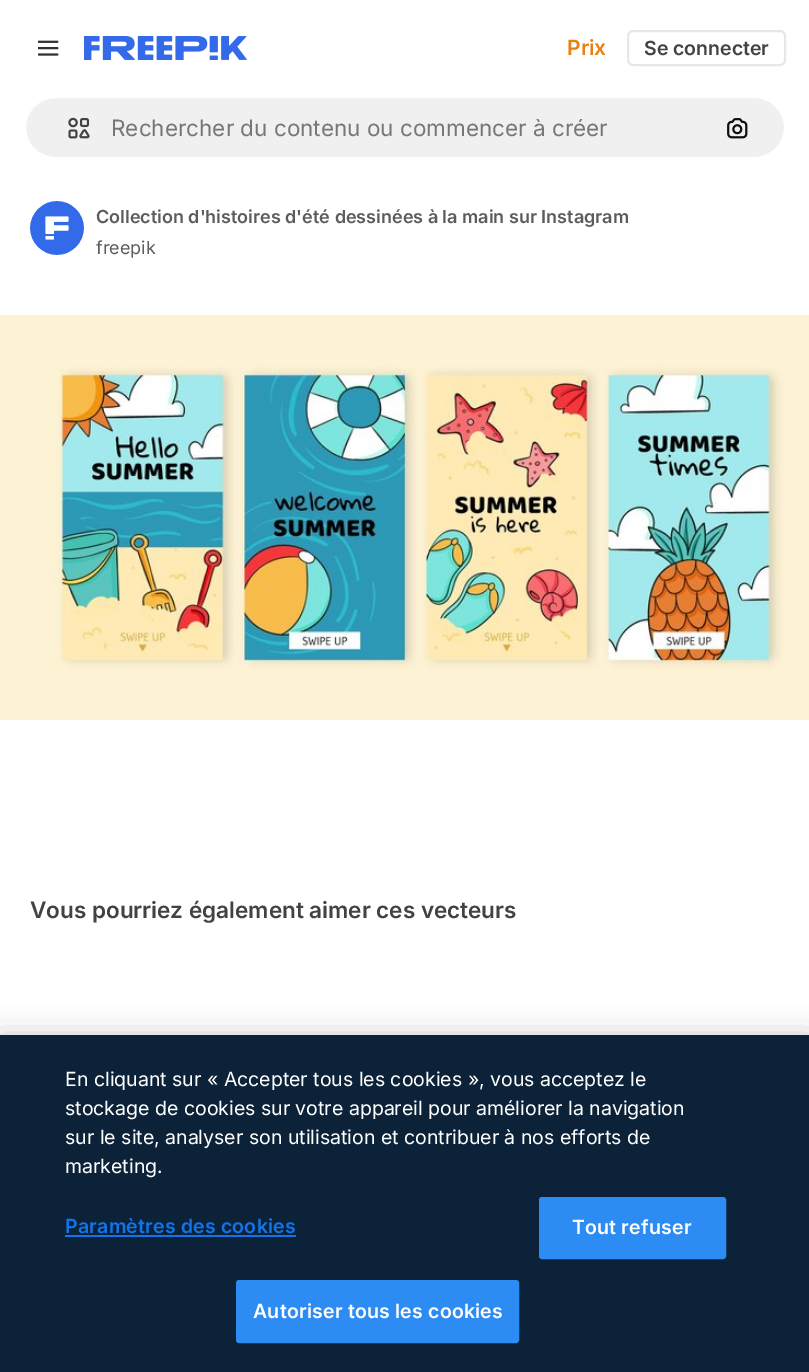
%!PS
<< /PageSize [809 1372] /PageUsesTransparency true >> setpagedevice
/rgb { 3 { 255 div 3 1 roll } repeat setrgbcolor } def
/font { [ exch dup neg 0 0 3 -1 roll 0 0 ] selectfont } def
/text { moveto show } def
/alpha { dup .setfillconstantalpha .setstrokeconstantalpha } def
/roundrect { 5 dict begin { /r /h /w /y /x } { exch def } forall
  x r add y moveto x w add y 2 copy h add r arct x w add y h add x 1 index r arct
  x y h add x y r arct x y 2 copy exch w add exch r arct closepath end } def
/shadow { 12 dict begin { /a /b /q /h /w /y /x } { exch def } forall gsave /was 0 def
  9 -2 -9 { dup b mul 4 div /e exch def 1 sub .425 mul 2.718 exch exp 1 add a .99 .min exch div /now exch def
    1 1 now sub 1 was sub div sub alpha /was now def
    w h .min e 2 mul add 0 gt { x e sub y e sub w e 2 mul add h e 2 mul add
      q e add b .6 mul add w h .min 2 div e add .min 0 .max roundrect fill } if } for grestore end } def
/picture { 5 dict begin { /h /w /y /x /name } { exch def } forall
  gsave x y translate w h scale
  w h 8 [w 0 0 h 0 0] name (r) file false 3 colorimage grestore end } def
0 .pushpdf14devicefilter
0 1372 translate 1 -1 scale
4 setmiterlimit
255 255 255 rgb
0 0 809 1372 rectfill
(img_01.rgb) 38 40 21 16 picture
(img_02.rgb) 84 36 163 24 picture
231 231 231 rgb
2 setlinewidth
628 31 157 34 5 roundrect stroke
240 240 240 rgb
25 97 760 61 30.5 roundrect gsave fill grestore
255 255 255 rgb
stroke
(img_03.rgb) 68 117 22 22 picture
(img_04.rgb) 727 118 21 21 picture
(img_05.rgb) 30 201 54 54 picture
(img_06.rgb) 0 315 809 405 picture
0 0 0 rgb
0 1035 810 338 0 13.5 0.2 shadow
11 34 57 rgb
0 1035 809 337 rectfill
18 115 235 rgb
65 1235 231 2 rectfill
44 140 244 rgb
540 1198 185 60 2 roundrect gsave fill grestore
stroke
237 1281 281 61 2 roundrect gsave fill grestore
stroke
/Inter-SemiBold 21 font
234 126 17 rgb
(Prix) 567 55 text
/Inter-SemiBold 19.5 font
66 66 66 rgb
(Se connecter) 644 55 text
/Inter-Regular 22.5 font
119 119 119 rgb
(Rechercher du contenu ou commencer à créer) 111 136 text
/Inter-SemiBold 18 font
92 92 92 rgb
(Collection d'histoires d'été dessinées à la main sur Instagram) 96 223 text
/Inter-Regular 18 font
(freepik) 96 254 text
/Inter-SemiBold 22.5 font
66 66 66 rgb
(Vous pourriez également aimer ces vecteurs) 30 918 text
/Inter-Regular 19.5 font
255 255 255 rgb
(En cliquant sur « Accepter tous les cookies », vous acceptez le) 65 1086 text
(stockage de cookies sur votre appareil pour améliorer la navigation) 65 1115 text
(sur le site, analyser son utilisation et contribuer à nos efforts de) 65 1144 text
(marketing.) 65 1173 text
/Inter-SemiBold 19.5 font
18 115 235 rgb
65 1233 moveto 0.2 0 (Paramètres des cookies) ashow
255 255 255 rgb
572 1234 moveto 0.2 0 (Tout refuser) ashow
253 1318 moveto 0.2 0 (Autoriser tous les cookies) ashow
.poppdf14devicefilter showpage
